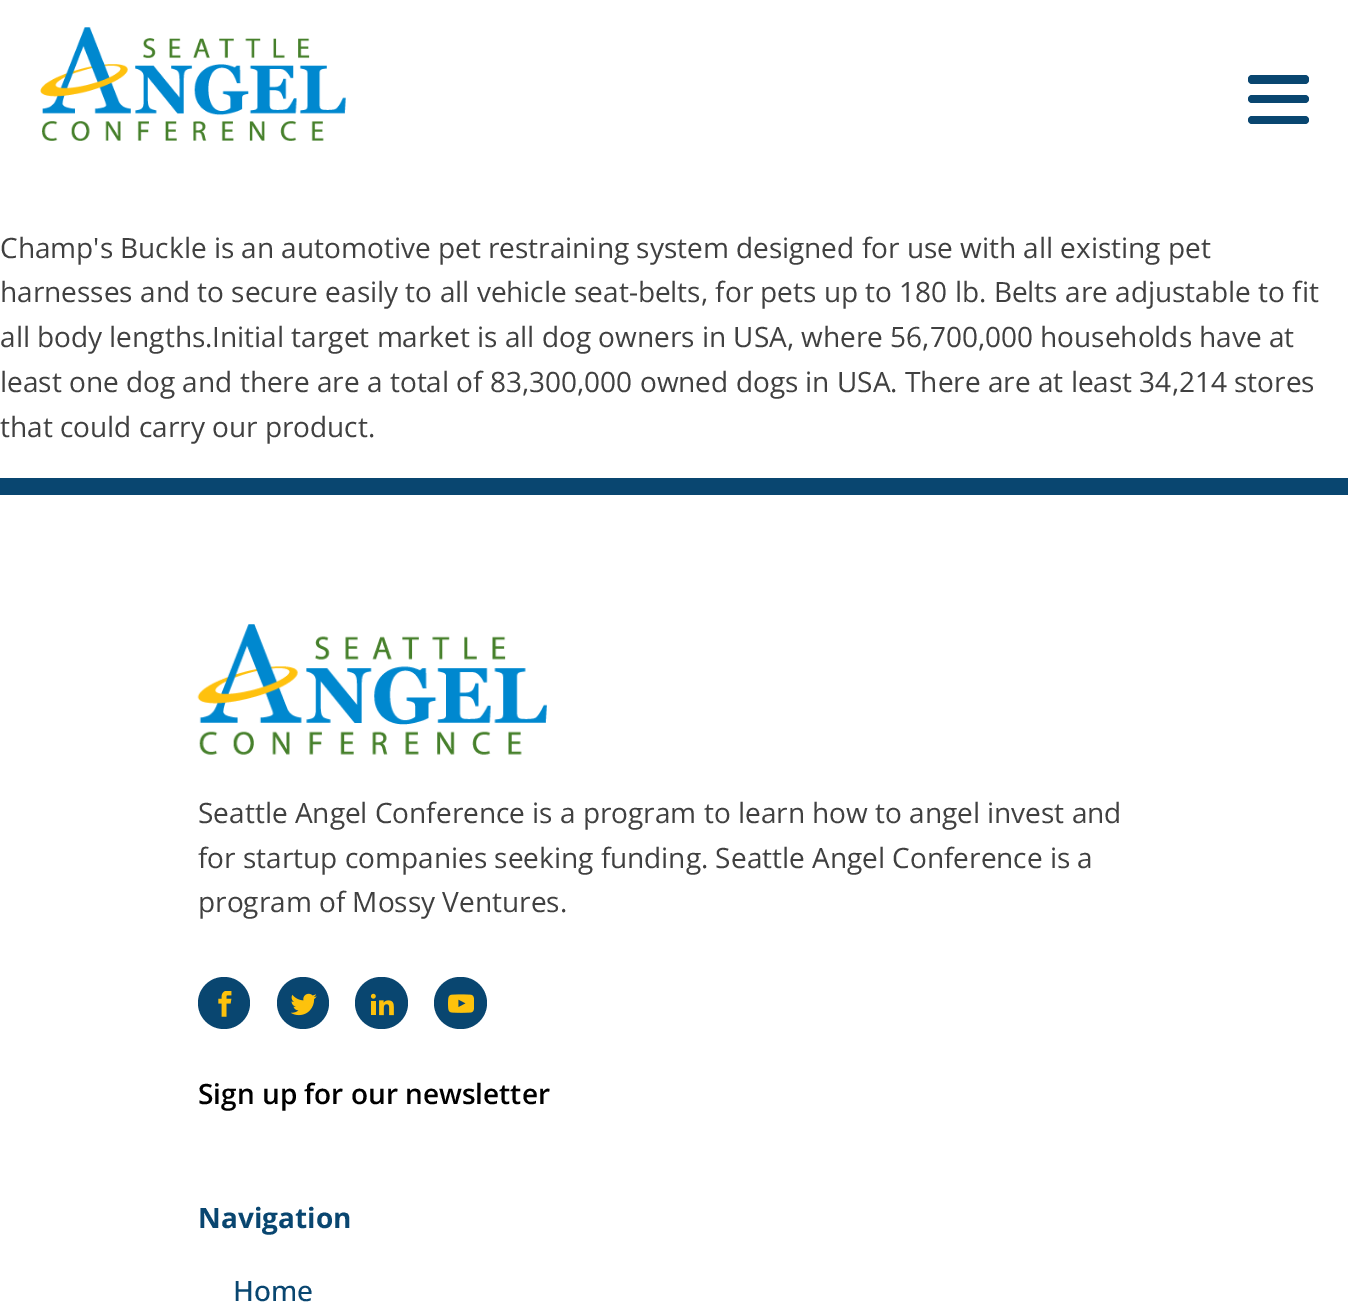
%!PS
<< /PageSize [1348 1304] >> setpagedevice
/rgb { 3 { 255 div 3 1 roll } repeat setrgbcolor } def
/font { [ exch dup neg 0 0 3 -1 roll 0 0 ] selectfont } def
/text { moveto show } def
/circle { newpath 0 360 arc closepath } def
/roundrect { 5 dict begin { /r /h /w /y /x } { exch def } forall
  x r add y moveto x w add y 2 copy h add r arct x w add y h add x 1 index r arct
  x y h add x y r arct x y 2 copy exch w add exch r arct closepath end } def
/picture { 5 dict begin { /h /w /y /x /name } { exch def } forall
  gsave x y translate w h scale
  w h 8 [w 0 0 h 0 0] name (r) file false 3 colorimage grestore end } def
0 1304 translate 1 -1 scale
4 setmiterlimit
255 255 255 rgb
0 0 1348 1304 rectfill
(img_01.rgb) 40 27 306 114 picture
9 70 112 rgb
1248 75 61 9 4 roundrect fill
1248 95 61 8 4 roundrect fill
1248 116 61 8 4 roundrect fill
0 478 1348 17 rectfill
(img_02.rgb) 197 624 350 131 picture
224 1003 26 circle fill
(img_03.rgb) 218 991 14 26 picture
303 1003 26 circle fill
(img_04.rgb) 291 993 26 23 picture
355 977 53 52 26 roundrect fill
(img_05.rgb) 370 993 24 23 picture
434 977 53 52 26 roundrect fill
(img_06.rgb) 448 994 26 19 picture
/OpenSans-Regular 28 font
64 64 64 rgb
(Champ's Buckle is an automotive pet restraining system designed for use with all existing pet) 0 258 text
(harnesses and to secure easily to all vehicle seat-belts, for pets up to 180 lb. Belts are adjustable to fit) 0 302 text
(all body lengths.Initial target market is all dog owners in USA, where 56,700,000 households have at) 0 347 text
(least one dog and there are a total of 83,300,000 owned dogs in USA. There are at least 34,214 stores) 0 392 text
(that could carry our product.) 0 437 text
(Seattle Angel Conference is a program to learn how to angel invest and) 198 823 text
(for startup companies seeking funding. Seattle Angel Conference is a) 198 868 text
(program of Mossy Ventures.) 198 912 text
/OpenSans-SemiBold 28 font
0 0 0 rgb
(Sign up for our newsletter) 198 1104 text
/OpenSans-Bold 28 font
9 70 112 rgb
(Navigation) 198 1228 text
/OpenSans-Medium 28 font
(Home) 233 1301 text
showpage
